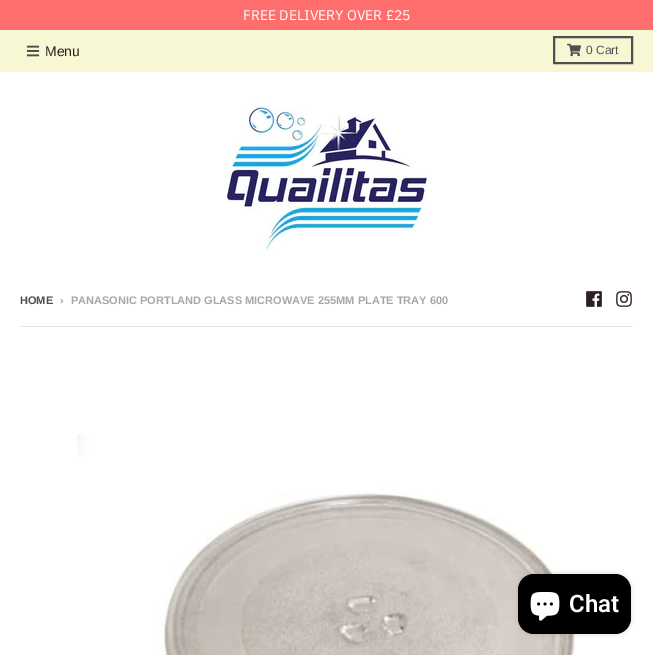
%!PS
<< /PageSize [653 655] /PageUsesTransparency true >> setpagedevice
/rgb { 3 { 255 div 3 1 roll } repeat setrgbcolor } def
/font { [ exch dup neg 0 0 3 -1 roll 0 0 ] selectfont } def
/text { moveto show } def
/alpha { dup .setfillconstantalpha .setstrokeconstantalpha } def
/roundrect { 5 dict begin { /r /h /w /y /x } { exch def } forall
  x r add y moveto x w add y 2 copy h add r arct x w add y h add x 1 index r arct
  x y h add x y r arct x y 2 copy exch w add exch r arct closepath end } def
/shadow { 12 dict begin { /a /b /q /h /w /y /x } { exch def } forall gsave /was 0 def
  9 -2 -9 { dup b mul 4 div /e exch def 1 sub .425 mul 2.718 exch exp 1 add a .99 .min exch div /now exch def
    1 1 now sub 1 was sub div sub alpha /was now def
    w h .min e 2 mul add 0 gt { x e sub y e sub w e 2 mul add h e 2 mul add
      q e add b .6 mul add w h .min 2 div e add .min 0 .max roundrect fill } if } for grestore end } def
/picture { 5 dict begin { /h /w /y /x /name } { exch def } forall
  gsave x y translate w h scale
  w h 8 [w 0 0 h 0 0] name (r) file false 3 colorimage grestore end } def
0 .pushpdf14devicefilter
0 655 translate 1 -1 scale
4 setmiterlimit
255 255 255 rgb
0 0 653 655 rectfill
255 109 109 rgb
0 0 653 30 rectfill
248 247 211 rgb
0 30 653 42 rectfill
(img_01.rgb) 26 45 14 12 picture
80 80 80 rgb
2 setlinewidth
554 37 78 26 rectstroke
(img_02.rgb) 567 43 14 14 picture
(img_03.rgb) 227 102 200 148 picture
(img_04.rgb) 586 291 16 16 picture
(img_05.rgb) 616 291 16 16 picture
229 229 229 rgb
20 326 613 1 rectfill
(img_06.rgb) 77 434 498 221 picture
0 0 0 rgb
518 574 113 60 16 2.5 0.15 shadow
518 574 113 60 16 roundrect fill
(img_07.rgb) 530 592 30 29 picture
/IBMPlexSans-Regular 14 font
255 255 255 rgb
(FREE DELIVERY OVER £25) 243 20 text
/Arimo-Regular 14 font
47 33 33 rgb
(Menu) 45 56 text
/Arimo-Regular 12 font
79 79 79 rgb
(0 Cart) 586 54 text
/Arimo-Bold 11 font
(HOME) 20 304 text
167 167 167 rgb
(›) 60 304 text
(PANASONIC PORTLAND GLASS MICROWAVE 255MM PLATE TRAY 600) 71 304 text
/Roboto-SemiBold 24 font
255 255 255 rgb
(Chat) 569 612 text
.poppdf14devicefilter showpage
